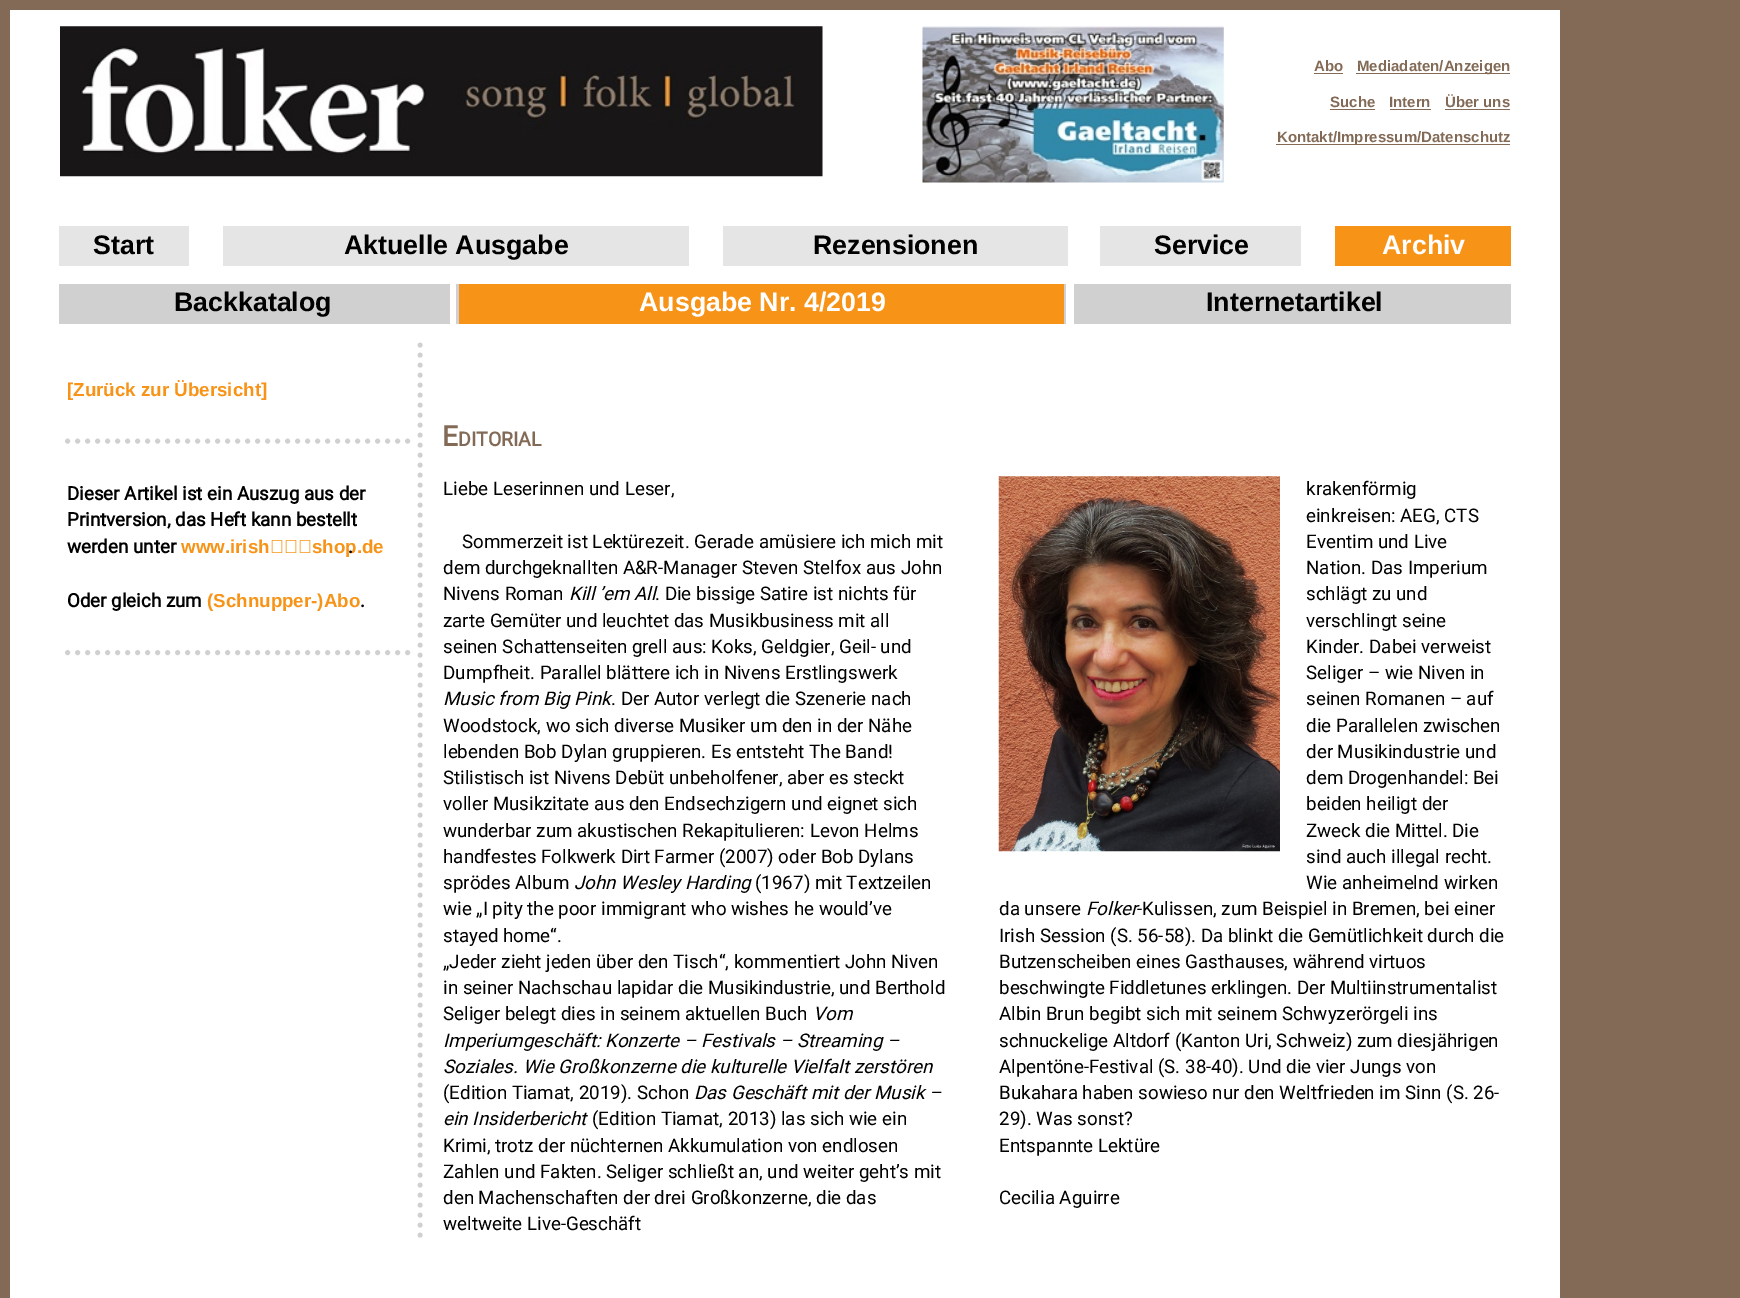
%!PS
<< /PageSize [1740 1298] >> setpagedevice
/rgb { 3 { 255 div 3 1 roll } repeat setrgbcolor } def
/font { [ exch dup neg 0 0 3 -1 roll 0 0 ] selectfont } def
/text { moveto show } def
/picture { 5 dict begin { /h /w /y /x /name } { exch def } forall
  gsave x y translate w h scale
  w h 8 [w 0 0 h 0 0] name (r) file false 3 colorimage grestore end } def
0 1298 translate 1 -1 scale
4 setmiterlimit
131 106 86 rgb
0 0 1740 1298 rectfill
255 255 255 rgb
10 10 1550 1288 rectfill
(img_01.rgb) 60 26 763 151 picture
(img_02.rgb) 922 26 302 157 picture
131 106 86 rgb
1314 73 29 1 rectfill
1356 73 154 1 rectfill
1330 109 45 1 rectfill
1390 109 41 1 rectfill
1445 109 65 1 rectfill
1276 144 234 1 rectfill
229 229 229 rgb
59 226 130 40 rectfill
223 226 466 40 rectfill
723 226 345 40 rectfill
1100 226 201 40 rectfill
247 147 23 rgb
1335 226 176 40 rectfill
208 208 208 rgb
59 284 1452 40 rectfill
255 255 255 rgb
450 284 6 40 rectfill
247 147 23 rgb
459 284 605 40 rectfill
255 255 255 rgb
1066 284 8 40 rectfill
208 208 208 rgb
5 setlinewidth
1 setlinecap
[0 10] 0 setdash
420 345 moveto 0 895 rlineto stroke
67.5 441 moveto 345 0 rlineto stroke
67.5 652.5 moveto 345 0 rlineto stroke
(img_03.rgb) 998 476 282 376 picture
/LiberationSans-Bold 15 font
131 106 86 rgb
(Abo) 1314 71 text
(Mediadaten/Anzeigen) 1357 71 text
(Suche) 1330 107 text
(Intern) 1389 107 text
(Über uns) 1445 107 text
(Kontakt/Impressum/Datenschutz) 1277 142 text
/LiberationSans-Bold 26.75 font
0 0 0 rgb
(Start) 93 254 text
(Aktuelle Ausgabe) 344 254 text
(Rezensionen) 813 254 text
(Service) 1154 254 text
255 255 255 rgb
(Archiv) 1382 254 text
0 0 0 rgb
(Backkatalog) 174 311 text
255 255 255 rgb
(Ausgabe Nr. 4/2019) 639 311 text
0 0 0 rgb
(Internetartikel) 1206 311 text
/LiberationSans-Bold 18.75 font
247 147 23 rgb
([Zurück zur Übersicht]) 67 396 text
/Roboto-Bold 18.75 font
0 0 0 rgb
(Dieser Artikel ist ein Auszug aus der) 67 500 text
(Printversion, das Heft kann bestellt) 67 526 text
(werden unter) 67 553 text
/LiberationSans-Bold 18.75 font
247 147 23 rgb
(www.irish‑shop.de) 181 553 text
/Roboto-Bold 18.75 font
0 0 0 rgb
(.) 348 553 text
(Oder gleich zum) 67 607 text
/LiberationSans-Bold 18.75 font
247 147 23 rgb
(\(Schnupper-\)Abo) 207 607 text
/Roboto-Bold 18.75 font
0 0 0 rgb
(.) 360 607 text
/Roboto-Bold 28 font
131 106 86 rgb
(E) 442 446 text
/Roboto-Bold 19.5 font
(DITORIAL) 458 446 text
/Roboto-Regular 18.75 font
0 0 0 rgb
(Liebe Leserinnen und Leser,) 443 495 text
(Sommerzeit ist Lektürezeit. Gerade amüsiere ich mich mit) 462 548 text
(dem durchgeknallten A&R-Manager Steven Stelfox aus John) 443 574 text
(Nivens Roman) 443 600 text
/Roboto-Italic 18.75 font
(Kill ’em All) 569 600 text
/Roboto-Regular 18.75 font
(. Die bissige Satire ist nichts für) 655 600 text
(zarte Gemüter und leuchtet das Musikbusiness mit all) 443 627 text
(seinen Schattenseiten grell aus: Koks, Geldgier, Geil- und) 443 653 text
(Dumpfheit. Parallel blättere ich in Nivens Erstlingswerk) 443 679 text
/Roboto-Italic 18.75 font
(Music from Big Pink) 443 705 text
/Roboto-Regular 18.75 font
(. Der Autor verlegt die Szenerie nach) 611 705 text
(Woodstock, wo sich diverse Musiker um den in der Nähe) 443 732 text
(lebenden Bob Dylan gruppieren. Es entsteht The Band!) 443 758 text
(Stilistisch ist Nivens Debüt unbeholfener, aber es steckt) 443 784 text
(voller Musikzitate aus den Endsechzigern und eignet sich) 443 810 text
(wunderbar zum akustischen Rekapitulieren: Levon Helms) 443 837 text
(handfestes Folkwerk Dirt Farmer \(2007\) oder Bob Dylans) 443 863 text
(sprödes Album) 443 889 text
/Roboto-Italic 18.75 font
(John Wesley Harding) 574 889 text
/Roboto-Regular 18.75 font
(\(1967\) mit Textzeilen) 755 889 text
(wie „I pity the poor immigrant who wishes he would’ve) 443 915 text
(stayed home“.) 443 942 text
(„Jeder zieht jeden über den Tisch“, kommentiert John Niven) 443 968 text
(in seiner Nachschau lapidar die Musikindustrie, und Berthold) 443 994 text
(Seliger belegt dies in seinem aktuellen Buch) 443 1020 text
/Roboto-Italic 18.75 font
(Vom) 813 1020 text
(Imperiumgeschäft: Konzerte – Festivals – Streaming –) 443 1047 text
(Soziales. Wie Großkonzerne die kulturelle Vielfalt zerstören) 443 1073 text
/Roboto-Regular 18.75 font
(\(Edition Tiamat, 2019\). Schon) 443 1099 text
/Roboto-Italic 18.75 font
(Das Geschäft mit der Musik –) 694 1099 text
(ein Insiderbericht) 443 1125 text
/Roboto-Regular 18.75 font
(\(Edition Tiamat, 2013\) las sich wie ein) 592 1125 text
(Krimi, trotz der nüchternen Akkumulation von endlosen) 443 1152 text
(Zahlen und Fakten. Seliger schließt an, und weiter geht’s mit) 443 1178 text
(den Machenschaften der drei Großkonzerne, die das) 443 1204 text
(weltweite Live-Geschäft) 443 1230 text
(krakenförmig) 1306 495 text
(einkreisen: AEG, CTS) 1306 522 text
(Eventim und Live) 1306 548 text
(Nation. Das Imperium) 1306 574 text
(schlägt zu und) 1306 600 text
(verschlingt seine) 1306 627 text
(Kinder. Dabei verweist) 1306 653 text
(Seliger – wie Niven in) 1306 679 text
(seinen Romanen – auf) 1306 705 text
(die Parallelen zwischen) 1306 732 text
(der Musikindustrie und) 1306 758 text
(dem Drogenhandel: Bei) 1306 784 text
(beiden heiligt der) 1306 810 text
(Zweck die Mittel. Die) 1306 837 text
(sind auch illegal recht.) 1306 863 text
(Wie anheimelnd wirken) 1306 889 text
(da unsere) 999 915 text
/Roboto-Italic 18.75 font
(Folker) 1086 915 text
/Roboto-Regular 18.75 font
(-Kulissen, zum Beispiel in Bremen, bei einer) 1137 915 text
(Irish Session \(S. 56-58\). Da blinkt die Gemütlichkeit durch die) 999 942 text
(Butzenscheiben eines Gasthauses, während virtuos) 999 968 text
(beschwingte Fiddletunes erklingen. Der Multiinstrumentalist) 999 994 text
(Albin Brun begibt sich mit seinem Schwyzerörgeli ins) 999 1020 text
(schnuckelige Altdorf \(Kanton Uri, Schweiz\) zum diesjährigen) 999 1047 text
(Alpentöne-Festival \(S. 38-40\). Und die vier Jungs von) 999 1073 text
(Bukahara haben sowieso nur den Weltfrieden im Sinn \(S. 26-) 999 1099 text
(29\). Was sonst?) 999 1125 text
(Entspannte Lektüre) 999 1152 text
(Cecilia Aguirre) 999 1204 text
showpage
